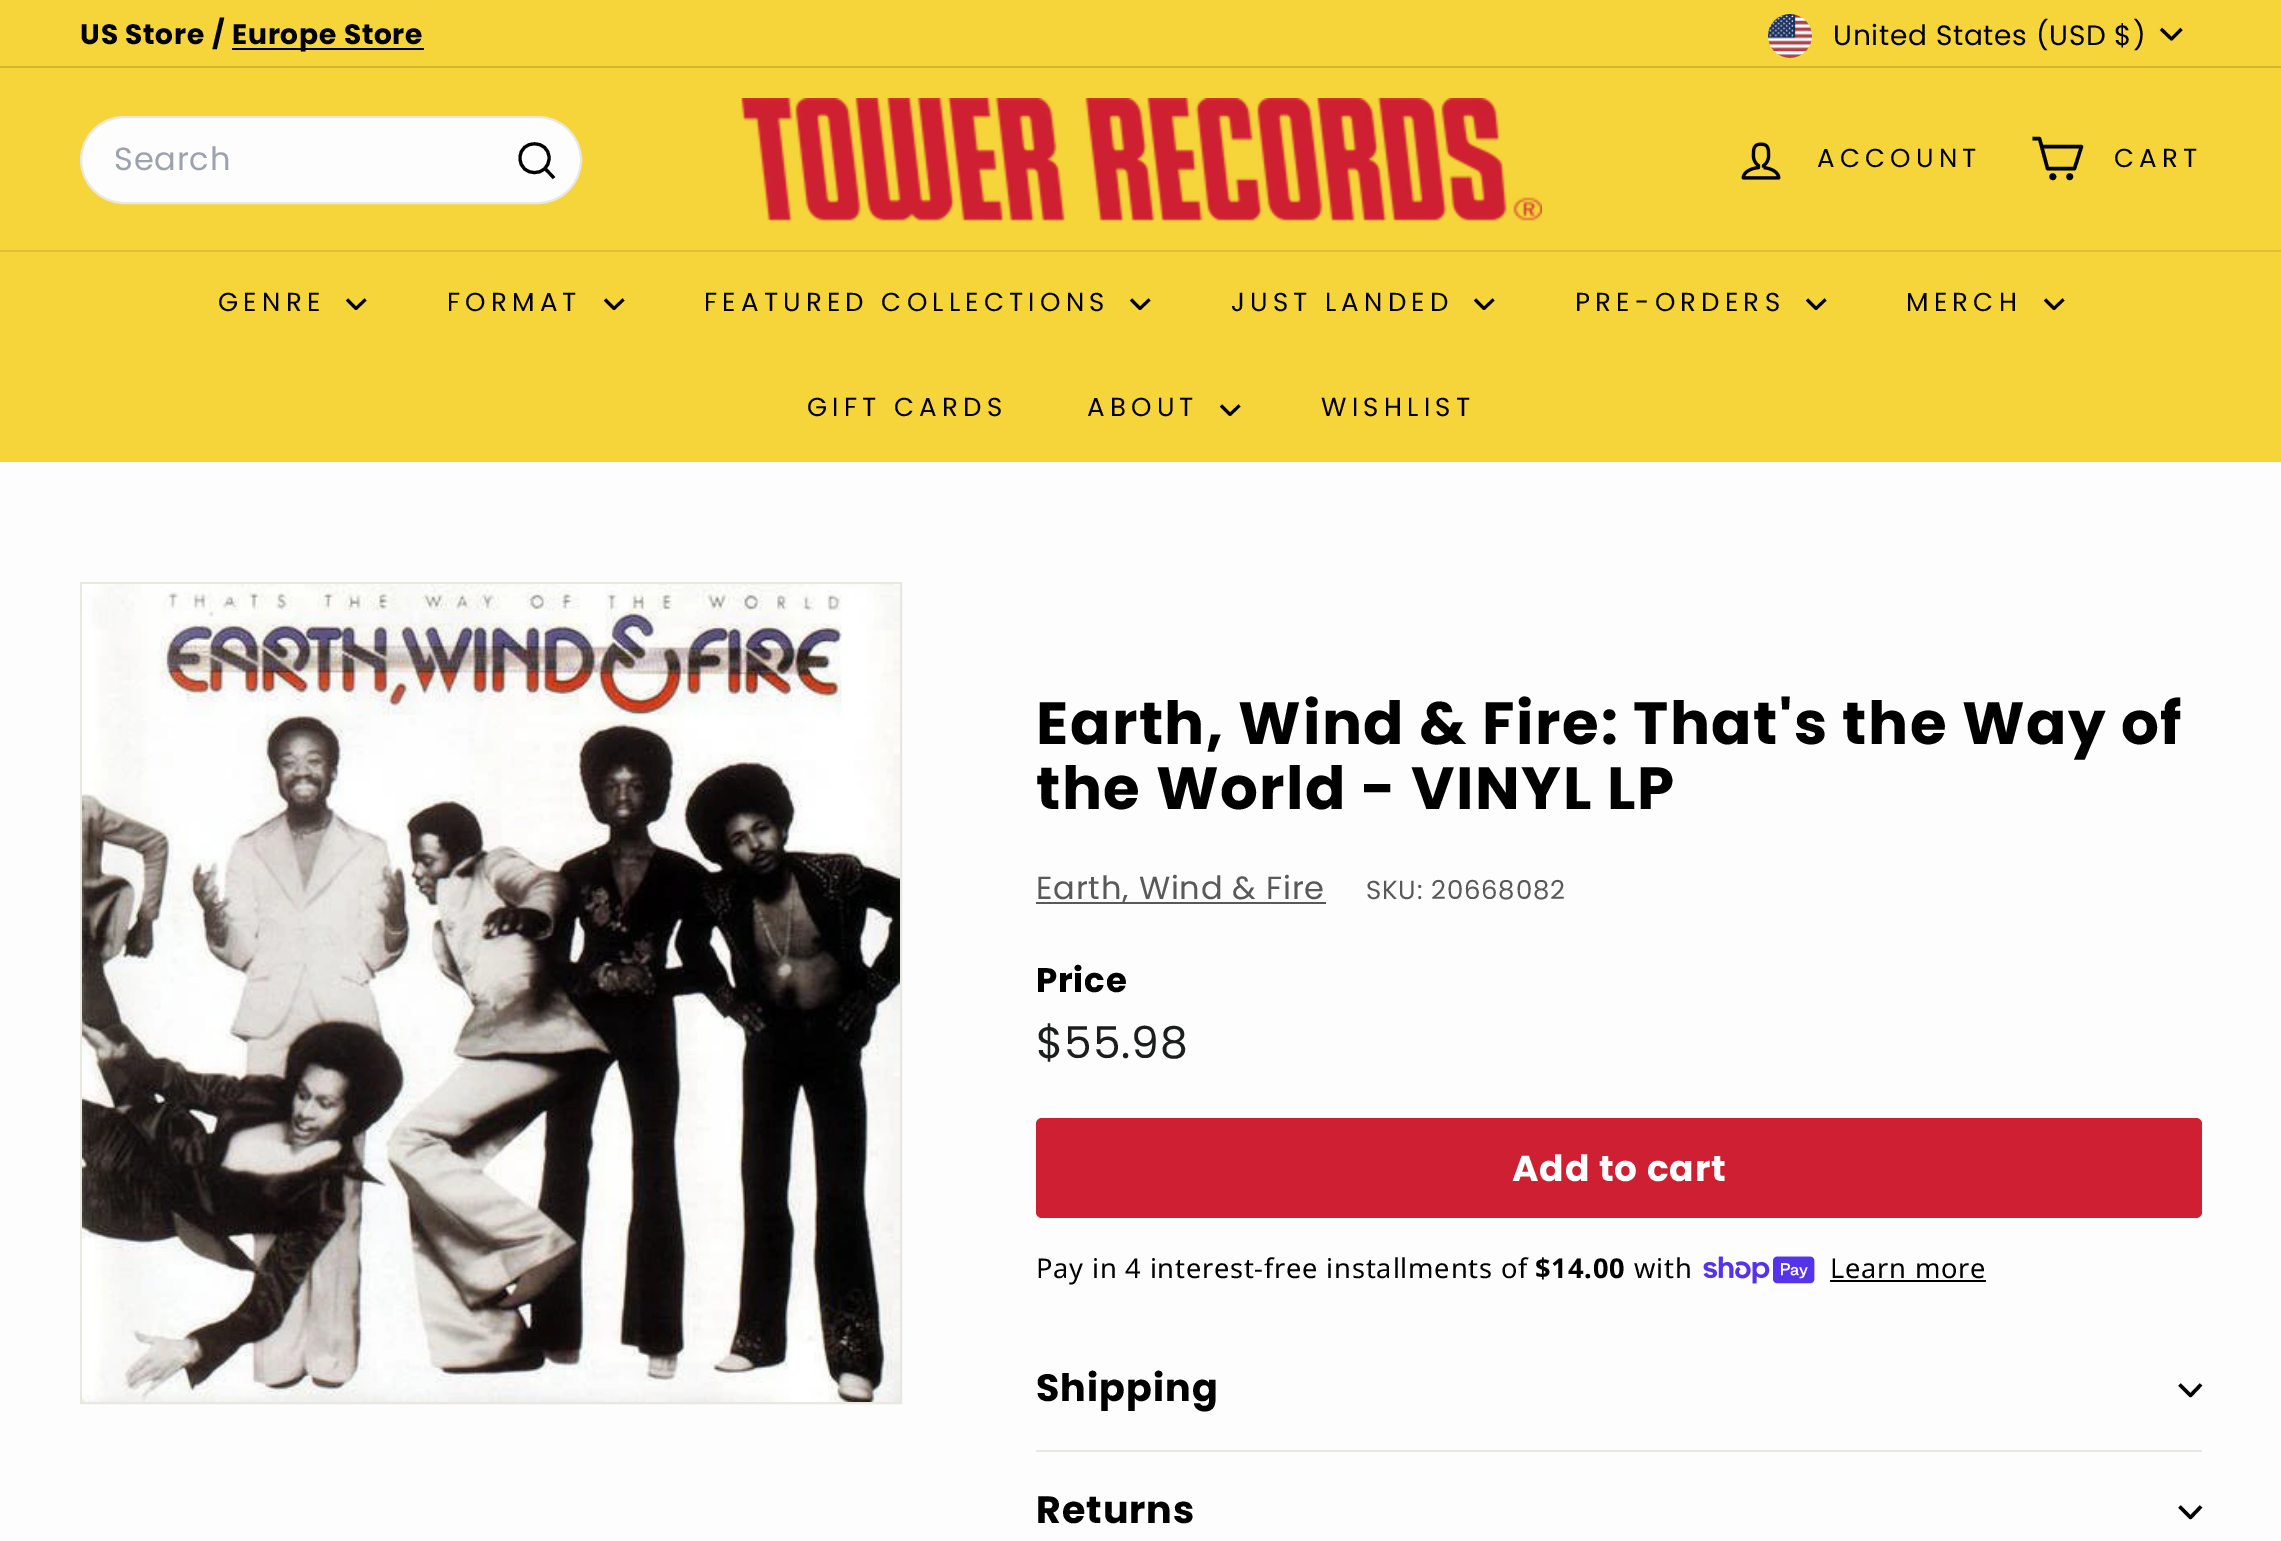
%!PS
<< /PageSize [2281 1541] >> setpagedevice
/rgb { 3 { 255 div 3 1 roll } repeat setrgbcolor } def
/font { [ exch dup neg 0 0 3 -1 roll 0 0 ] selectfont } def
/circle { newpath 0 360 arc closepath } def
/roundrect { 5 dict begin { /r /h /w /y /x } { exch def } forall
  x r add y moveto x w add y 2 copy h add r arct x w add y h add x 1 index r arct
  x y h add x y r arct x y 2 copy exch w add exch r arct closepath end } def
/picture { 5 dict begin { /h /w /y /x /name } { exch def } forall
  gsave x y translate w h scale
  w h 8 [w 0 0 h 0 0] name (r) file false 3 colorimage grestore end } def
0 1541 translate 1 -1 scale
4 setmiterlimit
253 253 253 rgb
0 0 2281 1541 rectfill
246 213 59 rgb
0 0 2281 66 rectfill
0 0 0 rgb
232 48 192 2 rectfill
(img_01.rgb) 1768 14 44 44 picture
3.1 setlinewidth
1 setlinejoin
2161 29 moveto 10.5 10 rlineto 10 -10 rlineto stroke
209 181 50 rgb
0 66 2281 2 rectfill
246 213 59 rgb
0 68 2281 182 rectfill
253 253 253 rgb
81 117 500 86 43 roundrect gsave fill grestore
232 232 225 rgb
2 setlinewidth
0 setlinejoin
stroke
0 0 0 rgb
3.1 setlinewidth
1 setlinejoin
549 158 moveto 0 19.5 -29 19.5 -29 0 rcurveto 0 -19 29 -19 29 0 rcurveto 554 178 moveto -9 -9.5 rlineto stroke
(img_02.rgb) 741 98 801 123 picture
(img_03.rgb) 1741 142 40 38 picture
3.4 setlinewidth
2042 146.5 moveto 39.5 0 rlineto -7 22 rlineto -27 0 rlineto -8 -30 rlineto -7 0 rlineto stroke
0 setlinejoin
2052.8 176.7 1.7 circle stroke
2069.7 176.7 1.7 circle stroke
246 213 59 rgb
0 252 2281 210 rectfill
221 192 53 rgb
0 250 2281 2 rectfill
0 0 0 rgb
2.9 setlinewidth
1 setlinejoin
347 299.5 moveto 9 9 rlineto 9.5 -9 rlineto stroke
605 299.5 moveto 9 9 rlineto 9.5 -9 rlineto stroke
1131 299.5 moveto 9 9 rlineto 9.5 -9 rlineto stroke
1475 299.5 moveto 9 9 rlineto 9.5 -9 rlineto stroke
1807 299.5 moveto 9 9 rlineto 9.5 -9 rlineto stroke
2045 299.5 moveto 9 9 rlineto 9.5 -9 rlineto stroke
1221 405.5 moveto 9 9 rlineto 9.5 -9 rlineto stroke
232 232 225 rgb
2 setlinewidth
0 setlinejoin
81 583 820 820 rectstroke
(img_04.rgb) 82 584 818 818 picture
89 89 89 rgb
1036 902 290 2 rectfill
206 32 50 rgb
1036 1118 1166 100 6 roundrect fill
(img_05.rgb) 1703 1256 112 28 picture
0 0 0 rgb
1830 1280 156 2 rectfill
232 232 225 rgb
1036 1450 1166 2 rectfill
0 0 0 rgb
3.4 setlinewidth
1 setlinejoin
2179.5 1384.5 moveto 11 11 rlineto 10.5 -11 rlineto stroke
2179.5 1506.5 moveto 11 11 rlineto 10.5 -11 rlineto stroke
/Poppins-Bold 28 font
80 44 moveto 0.8 0 (US Store /) ashow
232 44 moveto 0.8 0 (Europe Store) ashow
/Poppins-Regular 28 font
1833 45 moveto 0.7 0 (United States \(USD $\)) ashow
/Poppins-Regular 32 font
156 163 175 rgb
114 170 moveto 0.8 0 (Search) ashow
/Poppins-Regular 26 font
0 0 0 rgb
1817 167 moveto 5.25 0 (ACCOUNT) ashow
2114 167 moveto 5.25 0 (CART) ashow
218 311 moveto 5.25 0 (GENRE) ashow
447 311 moveto 5.25 0 (FORMAT) ashow
704 311 moveto 5.25 0 (FEATURED COLLECTIONS) ashow
1231 311 moveto 5.25 0 (JUST LANDED) ashow
1575 311 moveto 5.25 0 (PRE-ORDERS) ashow
1906 311 moveto 5.25 0 (MERCH) ashow
807 416 moveto 5.25 0 (GIFT CARDS) ashow
1087 416 moveto 5.25 0 (ABOUT) ashow
1321 416 moveto 5.25 0 (WISHLIST) ashow
/Poppins-Bold 59.5 font
1036 744 moveto 1.5 0 (Earth, Wind & Fire: That's the Way of) ashow
1036 809 moveto 1.5 0 (the World - VINYL LP) ashow
/Poppins-Regular 32 font
89 89 89 rgb
1036 899 moveto 0.8 0 (Earth, Wind & Fire) ashow
/Poppins-Regular 26 font
1366 899 moveto 0.8 0 (SKU: 20668082) ashow
/Poppins-Bold 34 font
0 0 0 rgb
1036 992 moveto 0.8 0 (Price) ashow
/Poppins-Regular 44 font
28 29 29 rgb
1036 1058 moveto 0.8 0 ($55.98) ashow
/Poppins-Bold 36 font
255 255 255 rgb
1512 1181 moveto 0.9 0 (Add to cart) ashow
/NotoSans-Regular 27.25 font
0 0 0 rgb
1036 1278 moveto 0.8 0 (Pay in 4 interest-free installments of) ashow
/NotoSans-Bold 27.25 font
1535 1278 moveto 0.8 0 ($14.00) ashow
/NotoSans-Regular 27.25 font
1634 1278 moveto 0.8 0 (with) ashow
1830 1278 moveto 0.8 0 (Learn more) ashow
/Poppins-Bold 38 font
1036 1401 moveto 1 0 (Shipping) ashow
1036 1523 moveto 1 0 (Returns) ashow
showpage
